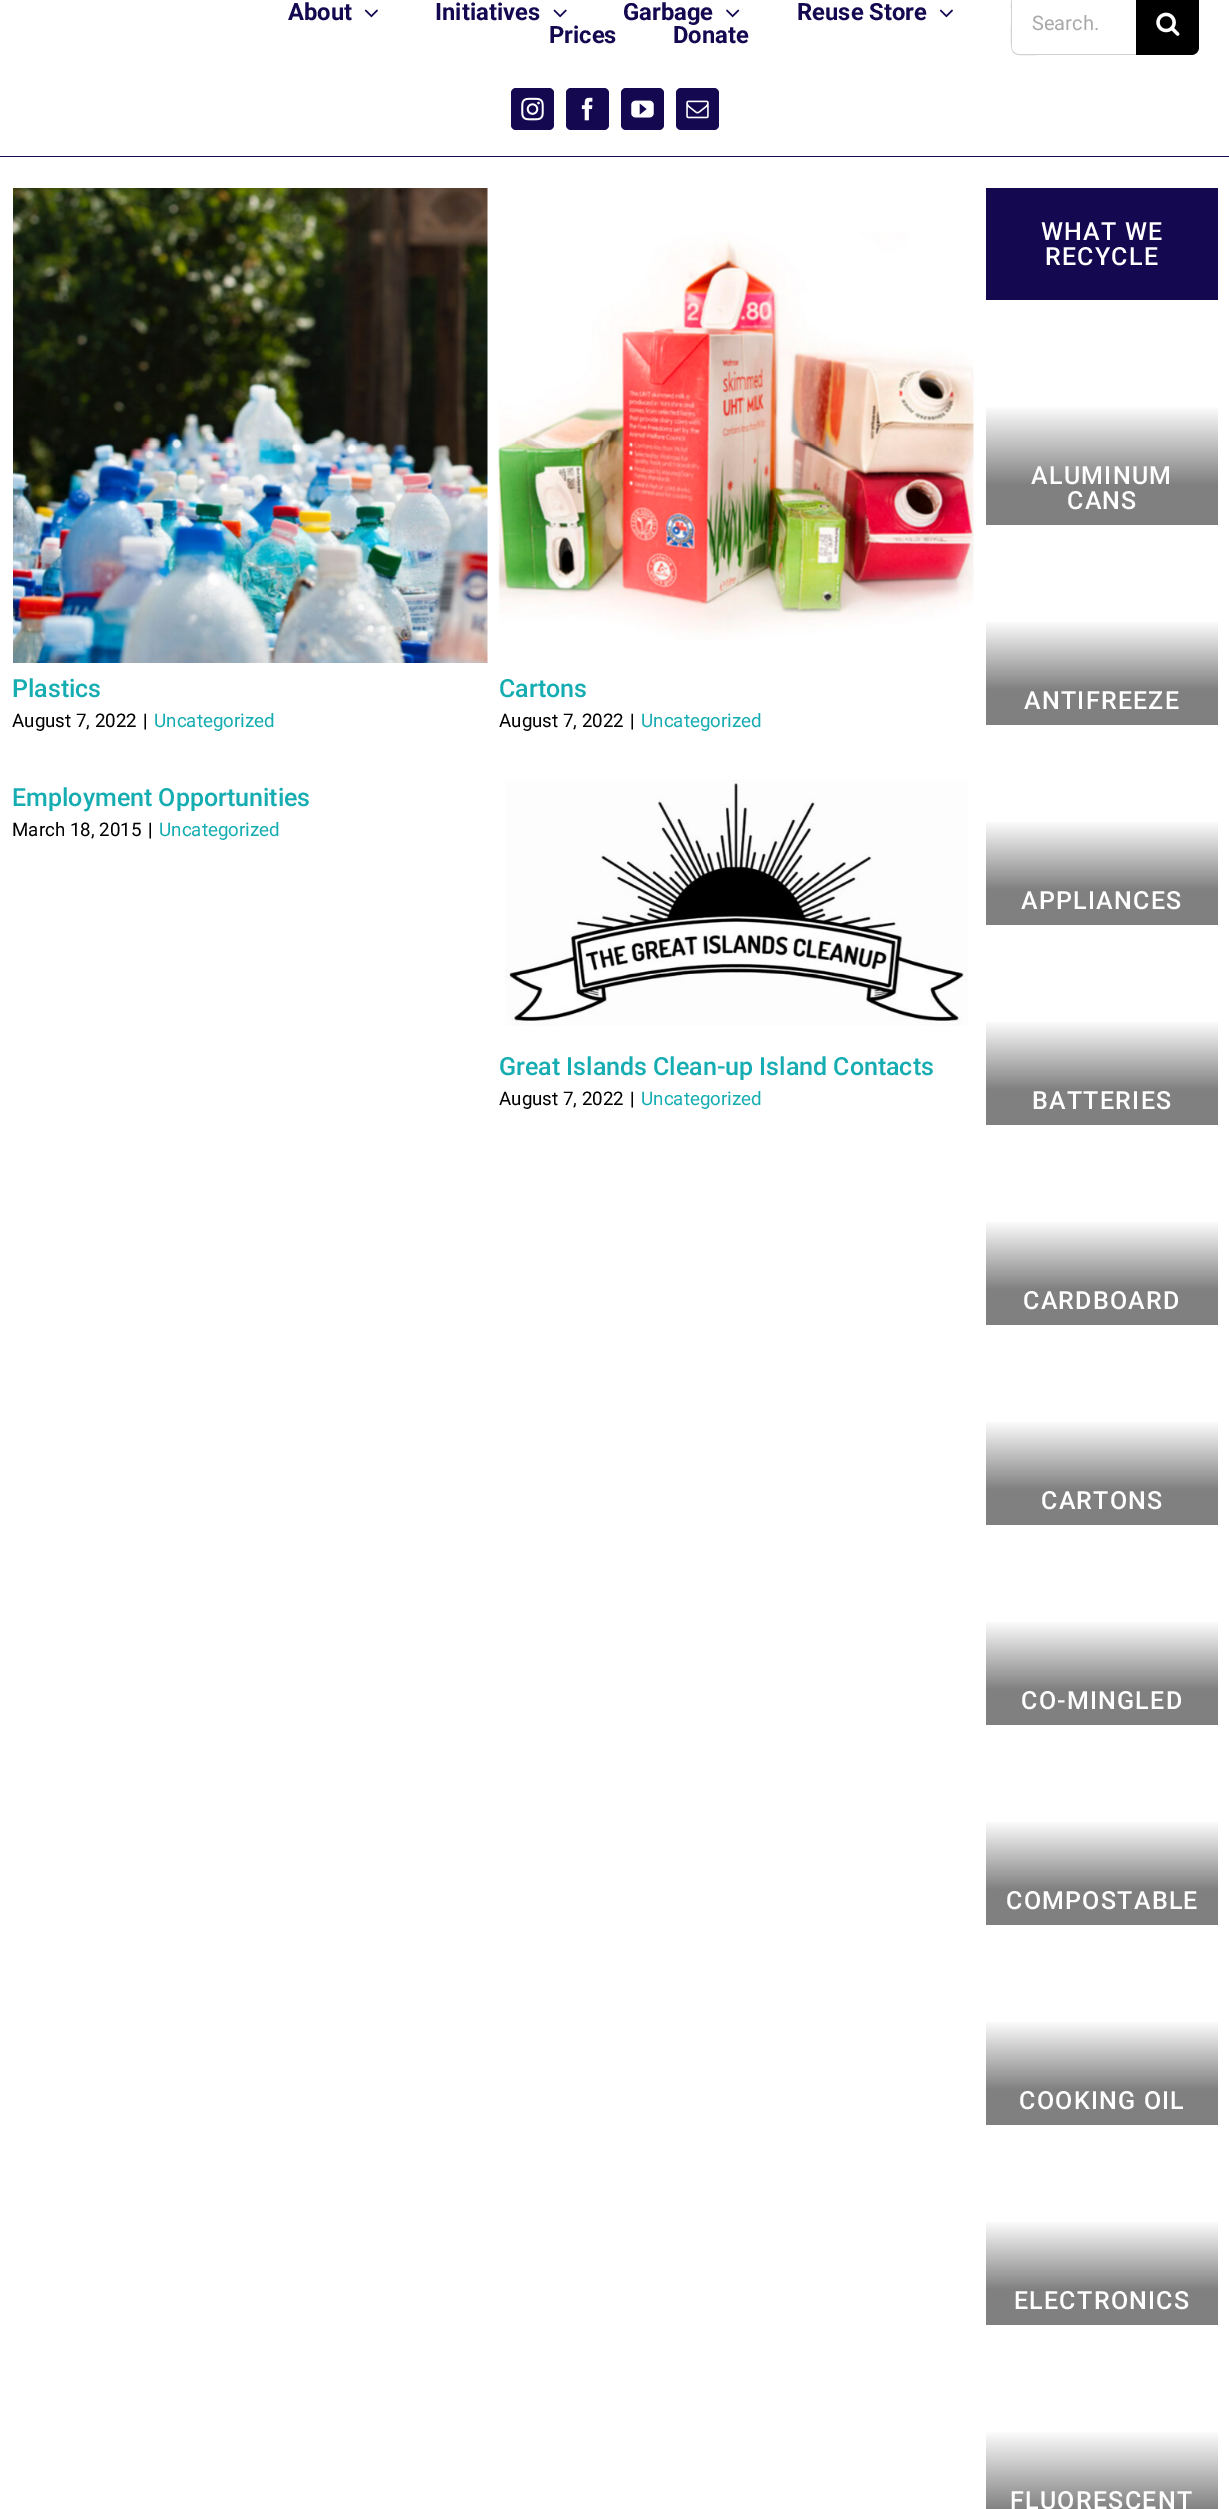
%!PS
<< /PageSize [1229 2509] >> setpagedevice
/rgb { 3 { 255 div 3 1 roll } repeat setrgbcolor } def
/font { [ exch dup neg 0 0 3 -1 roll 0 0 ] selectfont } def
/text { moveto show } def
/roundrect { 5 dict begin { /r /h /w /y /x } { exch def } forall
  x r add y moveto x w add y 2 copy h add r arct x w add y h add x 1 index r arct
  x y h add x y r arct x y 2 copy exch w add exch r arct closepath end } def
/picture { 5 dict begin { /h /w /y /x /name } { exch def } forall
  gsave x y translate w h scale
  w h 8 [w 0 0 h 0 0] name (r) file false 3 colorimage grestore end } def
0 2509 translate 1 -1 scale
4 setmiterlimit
255 255 255 rgb
0 0 1229 2509 rectfill
20 8 80 rgb
0 156 1229 1 rectfill
(img_01.rgb) 364 9 14 9 picture
(img_02.rgb) 553 9 14 9 picture
(img_03.rgb) 726 9 14 9 picture
(img_01.rgb) 939 9 14 9 picture
210 210 210 rgb
1019 -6 moveto 117 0 rlineto 0 -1 rlineto -117 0 rlineto -9 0 -8 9 -8 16 rcurveto 0 15 rlineto 0 35 -3 31 27 31 rcurveto 98 0 rlineto 0 -1 rlineto -117 0 rlineto -4 0 -7 -3 -7 -6 rcurveto 0 -48 rlineto 0 -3 3 -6 7 -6 rcurveto closepath fill
0 0 0 rgb
1136 -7 moveto 55 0 rlineto 4.5 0 8 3.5 8 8 rcurveto 0 46 rlineto 0 4.5 -3.5 8 -8 8 rcurveto -55 0 rlineto closepath fill
(img_04.rgb) 1156 12 24 24 picture
20 8 80 rgb
511 88 43 42 5 roundrect fill
(img_05.rgb) 521 97 23 24 picture
566 88 43 42 5 roundrect fill
(img_06.rgb) 581 97 12 24 picture
621 88 43 42 5 roundrect fill
(img_07.rgb) 631 100 23 18 picture
676 88 43 42 5 roundrect fill
(img_08.rgb) 686 100 23 19 picture
(img_09.rgb) 13 188 475 475 picture
(img_10.rgb) 498 232 476 408 picture
(img_11.rgb) 505 779 463 247 picture
986 188 232 112 rectfill
gsave 986 407 moveto 232 0 rlineto 0 118 rlineto -232 0 rlineto closepath clip newpath
<< /ShadingType 2 /ColorSpace /DeviceRGB /Coords [1102 525 1102 325] /Extend [true true] /Function << /FunctionType 3 /Domain [0 1] /Functions [<< /FunctionType 2 /Domain [0 1] /C0 [0.502 0.502 0.502] /C1 [0.502 0.502 0.502] /N 1 >> << /FunctionType 2 /Domain [0 1] /C0 [0.502 0.502 0.502] /C1 [1 1 1] /N 1 >> << /FunctionType 2 /Domain [0 1] /C0 [1 1 1] /C1 [1 1 1] /N 1 >>] /Bounds [0.2 0.6] /Encode [0 1 0 1 0 1] >> >> shfill grestore
gsave 986 621 moveto 232 0 rlineto 0 104 rlineto -232 0 rlineto closepath clip newpath
<< /ShadingType 2 /ColorSpace /DeviceRGB /Coords [1102 725 1102 550] /Extend [true true] /Function << /FunctionType 3 /Domain [0 1] /Functions [<< /FunctionType 2 /Domain [0 1] /C0 [0.502 0.502 0.502] /C1 [0.502 0.502 0.502] /N 1 >> << /FunctionType 2 /Domain [0 1] /C0 [0.502 0.502 0.502] /C1 [1 1 1] /N 1 >> << /FunctionType 2 /Domain [0 1] /C0 [1 1 1] /C1 [1 1 1] /N 1 >>] /Bounds [0.2 0.6] /Encode [0 1 0 1 0 1] >> >> shfill grestore
gsave 986 821 moveto 232 0 rlineto 0 104 rlineto -232 0 rlineto closepath clip newpath
<< /ShadingType 2 /ColorSpace /DeviceRGB /Coords [1102 925 1102 750] /Extend [true true] /Function << /FunctionType 3 /Domain [0 1] /Functions [<< /FunctionType 2 /Domain [0 1] /C0 [0.502 0.502 0.502] /C1 [0.502 0.502 0.502] /N 1 >> << /FunctionType 2 /Domain [0 1] /C0 [0.502 0.502 0.502] /C1 [1 1 1] /N 1 >> << /FunctionType 2 /Domain [0 1] /C0 [1 1 1] /C1 [1 1 1] /N 1 >>] /Bounds [0.2 0.6] /Encode [0 1 0 1 0 1] >> >> shfill grestore
gsave 986 1021 moveto 232 0 rlineto 0 104 rlineto -232 0 rlineto closepath clip newpath
<< /ShadingType 2 /ColorSpace /DeviceRGB /Coords [1102 1125 1102 950] /Extend [true true] /Function << /FunctionType 3 /Domain [0 1] /Functions [<< /FunctionType 2 /Domain [0 1] /C0 [0.502 0.502 0.502] /C1 [0.502 0.502 0.502] /N 1 >> << /FunctionType 2 /Domain [0 1] /C0 [0.502 0.502 0.502] /C1 [1 1 1] /N 1 >> << /FunctionType 2 /Domain [0 1] /C0 [1 1 1] /C1 [1 1 1] /N 1 >>] /Bounds [0.2 0.6] /Encode [0 1 0 1 0 1] >> >> shfill grestore
gsave 986 1221 moveto 232 0 rlineto 0 104 rlineto -232 0 rlineto closepath clip newpath
<< /ShadingType 2 /ColorSpace /DeviceRGB /Coords [1102 1325 1102 1150] /Extend [true true] /Function << /FunctionType 3 /Domain [0 1] /Functions [<< /FunctionType 2 /Domain [0 1] /C0 [0.502 0.502 0.502] /C1 [0.502 0.502 0.502] /N 1 >> << /FunctionType 2 /Domain [0 1] /C0 [0.502 0.502 0.502] /C1 [1 1 1] /N 1 >> << /FunctionType 2 /Domain [0 1] /C0 [1 1 1] /C1 [1 1 1] /N 1 >>] /Bounds [0.2 0.6] /Encode [0 1 0 1 0 1] >> >> shfill grestore
gsave 986 1421 moveto 232 0 rlineto 0 104 rlineto -232 0 rlineto closepath clip newpath
<< /ShadingType 2 /ColorSpace /DeviceRGB /Coords [1102 1525 1102 1350] /Extend [true true] /Function << /FunctionType 3 /Domain [0 1] /Functions [<< /FunctionType 2 /Domain [0 1] /C0 [0.502 0.502 0.502] /C1 [0.502 0.502 0.502] /N 1 >> << /FunctionType 2 /Domain [0 1] /C0 [0.502 0.502 0.502] /C1 [1 1 1] /N 1 >> << /FunctionType 2 /Domain [0 1] /C0 [1 1 1] /C1 [1 1 1] /N 1 >>] /Bounds [0.2 0.6] /Encode [0 1 0 1 0 1] >> >> shfill grestore
gsave 986 1621 moveto 232 0 rlineto 0 104 rlineto -232 0 rlineto closepath clip newpath
<< /ShadingType 2 /ColorSpace /DeviceRGB /Coords [1102 1725 1102 1550] /Extend [true true] /Function << /FunctionType 3 /Domain [0 1] /Functions [<< /FunctionType 2 /Domain [0 1] /C0 [0.502 0.502 0.502] /C1 [0.502 0.502 0.502] /N 1 >> << /FunctionType 2 /Domain [0 1] /C0 [0.502 0.502 0.502] /C1 [1 1 1] /N 1 >> << /FunctionType 2 /Domain [0 1] /C0 [1 1 1] /C1 [1 1 1] /N 1 >>] /Bounds [0.2 0.6] /Encode [0 1 0 1 0 1] >> >> shfill grestore
gsave 986 1821 moveto 232 0 rlineto 0 104 rlineto -232 0 rlineto closepath clip newpath
<< /ShadingType 2 /ColorSpace /DeviceRGB /Coords [1102 1925 1102 1750] /Extend [true true] /Function << /FunctionType 3 /Domain [0 1] /Functions [<< /FunctionType 2 /Domain [0 1] /C0 [0.502 0.502 0.502] /C1 [0.502 0.502 0.502] /N 1 >> << /FunctionType 2 /Domain [0 1] /C0 [0.502 0.502 0.502] /C1 [1 1 1] /N 1 >> << /FunctionType 2 /Domain [0 1] /C0 [1 1 1] /C1 [1 1 1] /N 1 >>] /Bounds [0.2 0.6] /Encode [0 1 0 1 0 1] >> >> shfill grestore
gsave 986 2021 moveto 232 0 rlineto 0 104 rlineto -232 0 rlineto closepath clip newpath
<< /ShadingType 2 /ColorSpace /DeviceRGB /Coords [1102 2125 1102 1950] /Extend [true true] /Function << /FunctionType 3 /Domain [0 1] /Functions [<< /FunctionType 2 /Domain [0 1] /C0 [0.502 0.502 0.502] /C1 [0.502 0.502 0.502] /N 1 >> << /FunctionType 2 /Domain [0 1] /C0 [0.502 0.502 0.502] /C1 [1 1 1] /N 1 >> << /FunctionType 2 /Domain [0 1] /C0 [1 1 1] /C1 [1 1 1] /N 1 >>] /Bounds [0.2 0.6] /Encode [0 1 0 1 0 1] >> >> shfill grestore
gsave 986 2221 moveto 232 0 rlineto 0 104 rlineto -232 0 rlineto closepath clip newpath
<< /ShadingType 2 /ColorSpace /DeviceRGB /Coords [1102 2325 1102 2150] /Extend [true true] /Function << /FunctionType 3 /Domain [0 1] /Functions [<< /FunctionType 2 /Domain [0 1] /C0 [0.502 0.502 0.502] /C1 [0.502 0.502 0.502] /N 1 >> << /FunctionType 2 /Domain [0 1] /C0 [0.502 0.502 0.502] /C1 [1 1 1] /N 1 >> << /FunctionType 2 /Domain [0 1] /C0 [1 1 1] /C1 [1 1 1] /N 1 >>] /Bounds [0.2 0.6] /Encode [0 1 0 1 0 1] >> >> shfill grestore
gsave 986 2432 moveto 232 0 rlineto 0 77 rlineto -232 0 rlineto closepath clip newpath
<< /ShadingType 2 /ColorSpace /DeviceRGB /Coords [1102 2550 1102 2350] /Extend [true true] /Function << /FunctionType 3 /Domain [0 1] /Functions [<< /FunctionType 2 /Domain [0 1] /C0 [0.502 0.502 0.502] /C1 [0.502 0.502 0.502] /N 1 >> << /FunctionType 2 /Domain [0 1] /C0 [0.502 0.502 0.502] /C1 [1 1 1] /N 1 >> << /FunctionType 2 /Domain [0 1] /C0 [1 1 1] /C1 [1 1 1] /N 1 >>] /Bounds [0.2 0.6] /Encode [0 1 0 1 0 1] >> >> shfill grestore
/Roboto-Bold 23.75 font
(About) 288 20 text
(Initiatives) 435 20 text
(Garbage) 623 20 text
(Reuse Store) 797 20 text
(Prices) 549 43 text
(Donate) 673 43 text
/Roboto-Regular 20 font
170 169 169 rgb
(Search.) 1032 30 text
/Roboto-Medium 25 font
21 173 178 rgb
(Plastics) 12 697 text
/Roboto-Regular 18.75 font
0 0 0 rgb
(August 7, 2022) 12 727 text
(|) 143 727 text
21 173 178 rgb
(Uncategorized) 154 727 text
/Roboto-Medium 25 font
(Cartons) 499 697 text
/Roboto-Regular 18.75 font
0 0 0 rgb
(August 7, 2022) 499 727 text
(|) 630 727 text
21 173 178 rgb
(Uncategorized) 641 727 text
/Roboto-Medium 25 font
(Employment Opportunities) 12 806 text
/Roboto-Regular 18.75 font
0 0 0 rgb
(March 18, 2015) 12 836 text
(|) 148 836 text
21 173 178 rgb
(Uncategorized) 159 836 text
/Roboto-Medium 25 font
(Great Islands Clean-up Island Contacts) 499 1075 text
/Roboto-Regular 18.75 font
0 0 0 rgb
(August 7, 2022) 499 1105 text
(|) 630 1105 text
21 173 178 rgb
(Uncategorized) 641 1105 text
/Roboto-Medium 25 font
255 255 255 rgb
1041 240 moveto 1.25 0 (WHAT WE) ashow
1045 265 moveto 1.25 0 (RECYCLE) ashow
1031 484 moveto 1.25 0 (ALUMINUM) ashow
1067 509 moveto 1.25 0 (CANS) ashow
1024 709 moveto 1.25 0 (ANTIFREEZE) ashow
1021 909 moveto 1.25 0 (APPLIANCES) ashow
1032 1109 moveto 1.25 0 (BATTERIES) ashow
1023 1309 moveto 1.25 0 (CARDBOARD) ashow
1041 1509 moveto 1.25 0 (CARTONS) ashow
1021 1709 moveto 1.25 0 (CO-MINGLED) ashow
1006 1909 moveto 1.25 0 (COMPOSTABLE) ashow
1019 2109 moveto 1.25 0 (COOKING OIL) ashow
1014 2309 moveto 1.25 0 (ELECTRONICS) ashow
1010 2509 moveto 1.25 0 (FLUORESCENT) ashow
showpage
